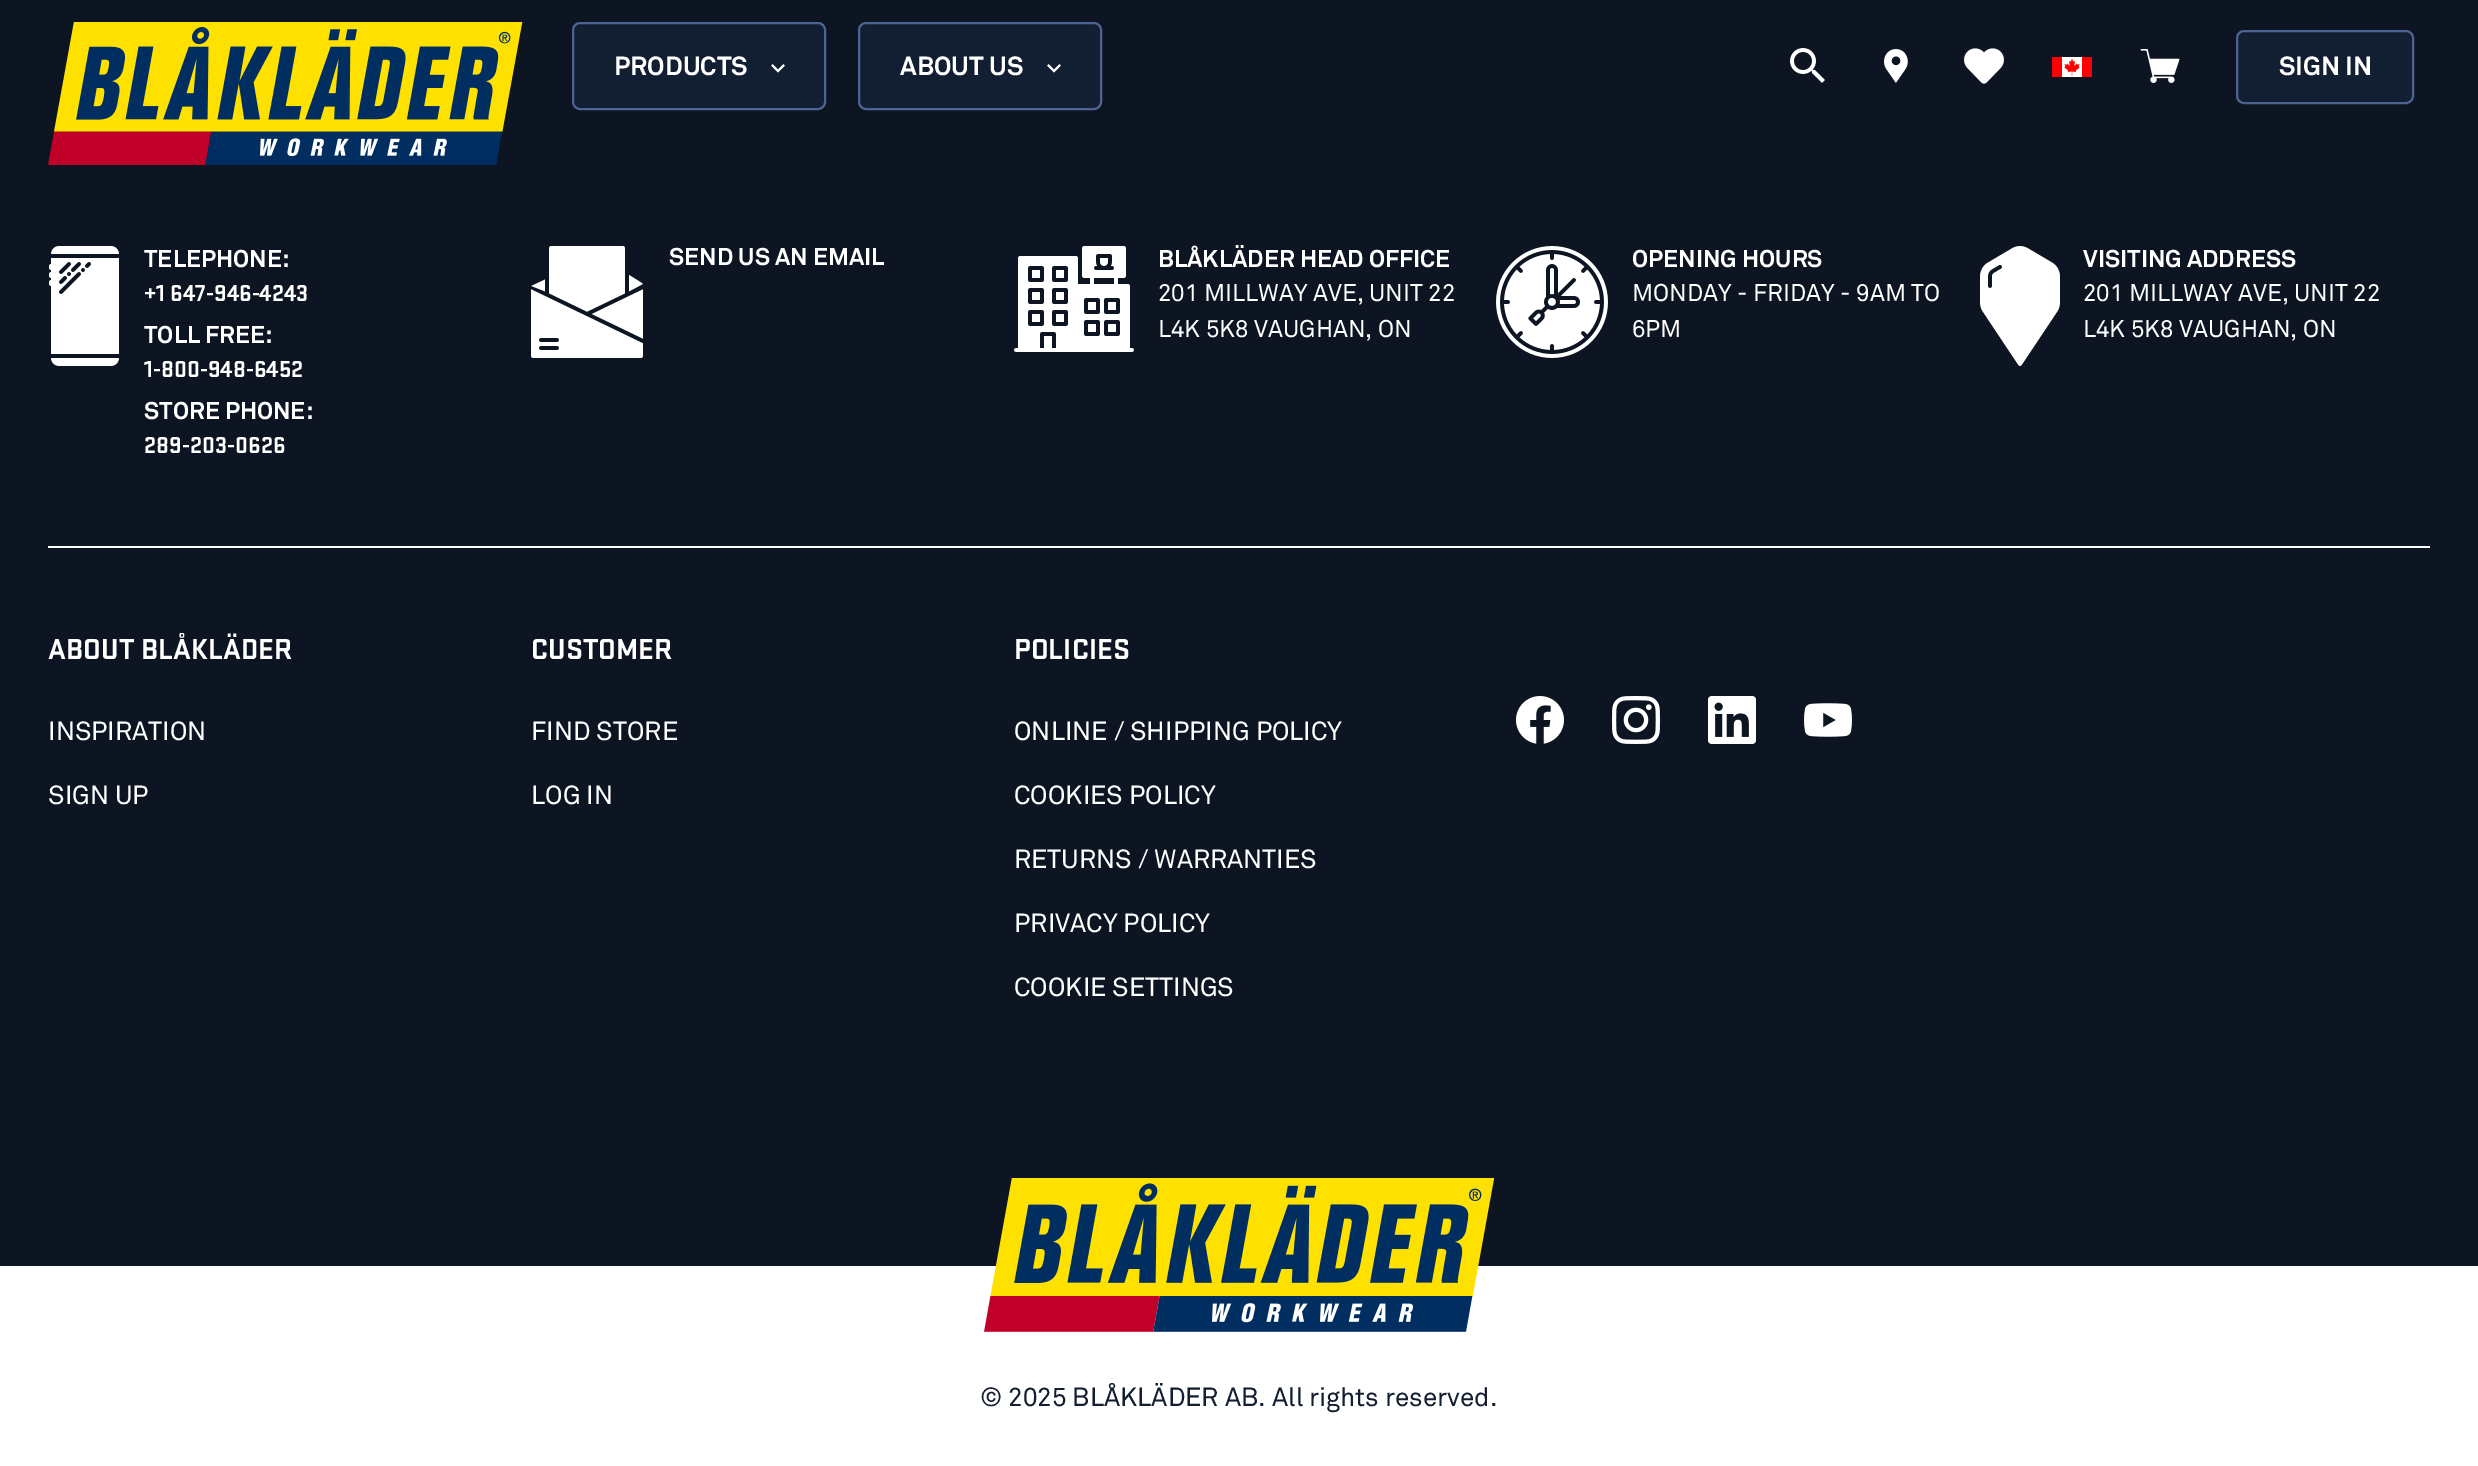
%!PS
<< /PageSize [2478 1466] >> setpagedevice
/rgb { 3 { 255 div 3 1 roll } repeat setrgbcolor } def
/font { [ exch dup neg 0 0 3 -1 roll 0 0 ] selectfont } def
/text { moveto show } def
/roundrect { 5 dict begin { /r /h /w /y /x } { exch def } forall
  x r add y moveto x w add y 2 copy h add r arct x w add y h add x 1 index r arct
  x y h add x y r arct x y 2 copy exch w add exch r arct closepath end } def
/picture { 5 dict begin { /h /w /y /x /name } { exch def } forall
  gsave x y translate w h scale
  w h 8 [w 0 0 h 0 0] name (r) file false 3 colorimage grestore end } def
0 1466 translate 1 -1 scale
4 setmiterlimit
255 255 255 rgb
0 0 2478 1466 rectfill
13 21 35 rgb
0 0 2478 1266 rectfill
(img_01.rgb) 48 22 475 143 picture
18 30 49 rgb
573 23 252 86 7 roundrect gsave fill grestore
77 99 147 rgb
2 setlinewidth
stroke
(img_02.rgb) 771 64 14 9 picture
18 30 49 rgb
859 23 242 86 7 roundrect gsave fill grestore
77 99 147 rgb
stroke
(img_02.rgb) 1047 64 14 9 picture
(img_03.rgb) 1790 48 35 35 picture
(img_04.rgb) 1884 49 24 34 picture
(img_05.rgb) 1964 48 40 36 picture
(img_06.rgb) 2052 57 40 20 picture
(img_07.rgb) 2140 49 40 34 picture
18 30 49 rgb
2237 31 176 72 7 roundrect gsave fill grestore
77 99 147 rgb
stroke
(img_08.rgb) 49 246 70 120 picture
(img_09.rgb) 531 246 112 112 picture
(img_10.rgb) 1014 246 120 106 picture
(img_11.rgb) 1496 246 112 112 picture
(img_12.rgb) 1980 246 80 120 picture
255 255 255 rgb
48 546 2382 2 rectfill
(img_13.rgb) 1516 696 48 48 picture
(img_14.rgb) 1612 696 48 48 picture
(img_15.rgb) 1708 696 48 48 picture
(img_16.rgb) 1804 703 48 34 picture
(img_17.rgb) 984 1178 511 154 picture
/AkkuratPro-Bold 26 font
(PRODUCTS) 614 75 text
(ABOUT US) 900 75 text
(SIGN IN) 2279 75 text
/AkkuratPro-Bold 24 font
(TELEPHONE:) 144 267 text
/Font-Bold 24 font
(+1 647-946-4243) 144 301 text
/AkkuratPro-Bold 24 font
(TOLL FREE:) 144 343 text
/Font-Bold 24 font
(1-800-948-6452) 144 377 text
/AkkuratPro-Bold 24 font
(STORE PHONE:) 144 419 text
/Font-Bold 24 font
(289-203-0626) 144 453 text
/AkkuratPro-Bold 24 font
(SEND US AN EMAIL) 669 265 text
(BLÅKLÄDER HEAD OFFICE) 1158 267 text
/AkkuratPro-Regular 24 font
(201 MILLWAY AVE, UNIT 22) 1158 301 text
(L4K 5K8 VAUGHAN, ON) 1158 337 text
/AkkuratPro-Bold 24 font
(OPENING HOURS) 1632 267 text
/AkkuratPro-Regular 24 font
(MONDAY - FRIDAY - 9AM TO) 1632 301 text
(6PM) 1632 337 text
/AkkuratPro-Bold 24 font
(VISITING ADDRESS) 2083 267 text
/AkkuratPro-Regular 24 font
(201 MILLWAY AVE, UNIT 22) 2083 301 text
(L4K 5K8 VAUGHAN, ON) 2083 337 text
/Font-Bold 30 font
(ABOUT BLÅKLÄDER) 48 659 text
/AkkuratPro-Regular 26 font
(INSPIRATION) 48 740 text
(SIGN UP) 48 804 text
/Font-Bold 30 font
(CUSTOMER) 531 659 text
/AkkuratPro-Regular 26 font
(FIND STORE) 531 740 text
(LOG IN) 531 804 text
/Font-Bold 30 font
(POLICIES) 1014 659 text
/AkkuratPro-Regular 26 font
(ONLINE / SHIPPING POLICY) 1014 740 text
(COOKIES POLICY) 1014 804 text
(RETURNS / WARRANTIES) 1014 868 text
(PRIVACY POLICY) 1014 932 text
(COOKIE SETTINGS) 1014 996 text
19 30 48 rgb
(© 2025 BLÅKLÄDER AB. All rights reserved.) 980 1406 text
showpage
